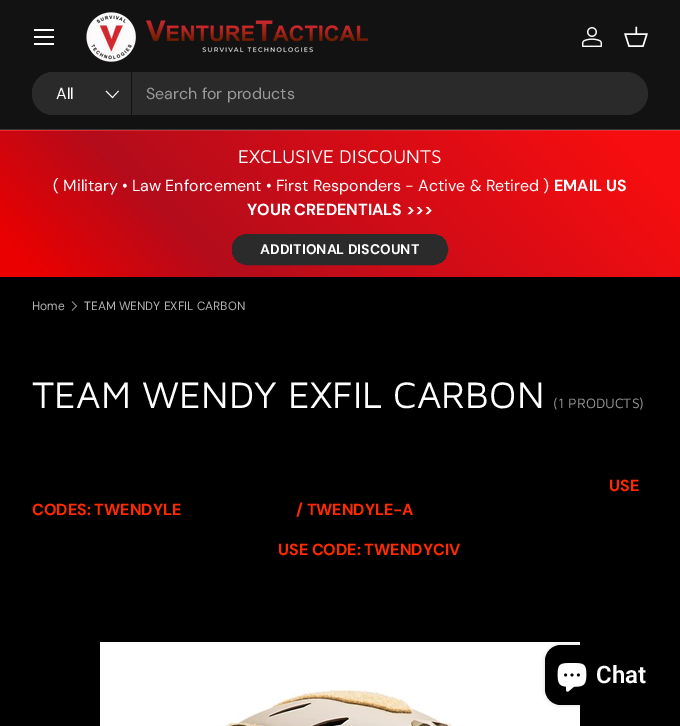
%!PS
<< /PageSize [680 726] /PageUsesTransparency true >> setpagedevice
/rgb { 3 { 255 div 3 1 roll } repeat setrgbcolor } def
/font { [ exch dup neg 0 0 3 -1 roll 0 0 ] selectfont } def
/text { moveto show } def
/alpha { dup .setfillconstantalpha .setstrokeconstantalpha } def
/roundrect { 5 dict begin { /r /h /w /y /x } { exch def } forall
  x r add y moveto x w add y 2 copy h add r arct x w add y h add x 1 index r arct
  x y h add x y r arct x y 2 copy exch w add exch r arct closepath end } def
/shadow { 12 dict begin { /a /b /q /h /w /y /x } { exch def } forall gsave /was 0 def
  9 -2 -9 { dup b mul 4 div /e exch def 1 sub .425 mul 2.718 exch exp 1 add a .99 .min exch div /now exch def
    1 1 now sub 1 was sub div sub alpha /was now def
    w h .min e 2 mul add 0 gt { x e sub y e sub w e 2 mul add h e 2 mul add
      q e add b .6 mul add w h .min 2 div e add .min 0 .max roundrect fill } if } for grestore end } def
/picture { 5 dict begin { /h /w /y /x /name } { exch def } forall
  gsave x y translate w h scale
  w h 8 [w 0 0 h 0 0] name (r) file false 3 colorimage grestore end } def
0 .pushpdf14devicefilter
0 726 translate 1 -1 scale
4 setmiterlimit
0 0 0 rgb
0 0 680 726 rectfill
18 18 18 rgb
0 0 680 129 rectfill
54 54 54 rgb
0 129 680 1 rectfill
255 255 255 rgb
34 29 20 2 rectfill
34 43 20 2 rectfill
34 36 20 2 rectfill
(img_01.rgb) 86 12 283 50 picture
(img_02.rgb) 582 27 20 20 picture
(img_03.rgb) 624 26 24 21 picture
42 42 42 rgb
32 72 616 43 21.5 roundrect fill
53.5 72 moveto 78.5 0 rlineto 0 43 rlineto -78.5 0 rlineto -12 0 -21.5 -9.5 -21.5 -21.5 rcurveto 0 -12 9.5 -21.5 21.5 -21.5 rcurveto closepath fill
18 18 18 rgb
131 72 1 43 rectfill
255 255 255 rgb
0.8 setlinewidth
118.5 91 moveto -6 6.5 rlineto -6.5 -6.5 rlineto stroke
gsave 0 130 moveto 680 0 rlineto 0 1 rlineto -680 0 rlineto closepath clip newpath
<< /ShadingType 2 /ColorSpace /DeviceRGB /Coords [128 263 552 -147] /Extend [true true] /Function << /FunctionType 3 /Domain [0 1] /Functions [<< /FunctionType 2 /Domain [0 1] /C0 [0.929 0.149 0.149] /C1 [0.929 0.149 0.149] /N 1 >> << /FunctionType 2 /Domain [0 1] /C0 [0.929 0.149 0.149] /C1 [0.749 0.188 0.243] /N 1 >> << /FunctionType 2 /Domain [0 1] /C0 [0.749 0.188 0.243] /C1 [0.969 0.192 0.2] /N 1 >> << /FunctionType 2 /Domain [0 1] /C0 [0.969 0.192 0.2] /C1 [0.969 0.192 0.2] /N 1 >>] /Bounds [0.05 0.28 0.92] /Encode [0 1 0 1 0 1 0 1] >> >> shfill grestore
gsave 0 131 moveto 680 0 rlineto 0 146 rlineto -680 0 rlineto closepath clip newpath
<< /ShadingType 2 /ColorSpace /DeviceRGB /Coords [128 409 552 -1.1] /Extend [true true] /Function << /FunctionType 3 /Domain [0 1] /Functions [<< /FunctionType 2 /Domain [0 1] /C0 [0.918 0 0] /C1 [0.918 0 0] /N 1 >> << /FunctionType 2 /Domain [0 1] /C0 [0.918 0 0] /C1 [0.706 0.047 0.11] /N 1 >> << /FunctionType 2 /Domain [0 1] /C0 [0.706 0.047 0.11] /C1 [0.965 0.051 0.059] /N 1 >> << /FunctionType 2 /Domain [0 1] /C0 [0.965 0.051 0.059] /C1 [0.965 0.051 0.059] /N 1 >>] /Bounds [0.05 0.28 0.92] /Encode [0 1 0 1 0 1 0 1] >> >> shfill grestore
gsave
232 234 216 31 15.5 roundrect clip newpath
gsave 232 236 moveto 214 0 rlineto 0 27 rlineto -214 0 rlineto closepath clip newpath
<< /ShadingType 2 /ColorSpace /DeviceRGB /Coords [-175 174 431 325] /Extend [true true] /Function << /FunctionType 3 /Domain [0 1] /Functions [<< /FunctionType 2 /Domain [0 1] /C0 [0.322 0.325 0.322] /C1 [0.322 0.325 0.322] /N 1 >> << /FunctionType 2 /Domain [0 1] /C0 [0.165 0.169 0.165] /C1 [0.165 0.169 0.165] /N 1 >>] /Bounds [0.6] /Encode [0 1 0 1] >> >> shfill grestore
grestore
42 43 42 rgb
2 setlinewidth
233 235 214 29 14.5 roundrect stroke
180 180 180 rgb
0.6 setlinewidth
72 301.5 moveto 4.5 4.5 rlineto -4.5 4.5 rlineto stroke
(img_04.rgb) 100 642 480 84 picture
0 0 0 rgb
545 645 113 60 16 2.5 0.15 shadow
545 645 113 60 16 roundrect fill
(img_05.rgb) 557 663 30 29 picture
/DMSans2-Regular 16 font
255 255 255 rgb
(All) 56 99 text
153 153 153 rgb
(Search for products) 146 99 text
/MavenPro-Regular 19.1 font
255 255 255 rgb
(EXCLUSIVE DISCOUNTS) 238 163 text
/DMSans2-Regular 16 font
(\( Military • Law Enforcement • First Responders - Active & Retired \)) 53 191 text
/DMSans-Bold 16 font
(EMAIL US) 554 191 text
(YOUR CREDENTIALS >>>) 247 215 text
/DMSans2-Bold 14 font
(ADDITIONAL DISCOUNT) 260 254 text
/DMSans-Regular 12 font
180 180 180 rgb
(Home) 32 310 text
(TEAM WENDY EXFIL CARBON) 84 310 text
/MavenPro-Regular 38.1 font
255 255 255 rgb
(TEAM WENDY EXFIL CARBON) 32 408 text
/MavenPro-Regular 14 font
153 153 153 rgb
(\(1 PRODUCTS\)) 553 408 text
/DMSans-Bold 16 font
255 42 0 rgb
(USE) 609 491 text
(CODES: TWENDYLE) 32 515 text
(/ TWENDYLE-A) 296 515 text
(USE CODE: TWENDYCIV) 278 555 text
/Roboto-SemiBold 24 font
255 255 255 rgb
(Chat) 596 683 text
.poppdf14devicefilter showpage
